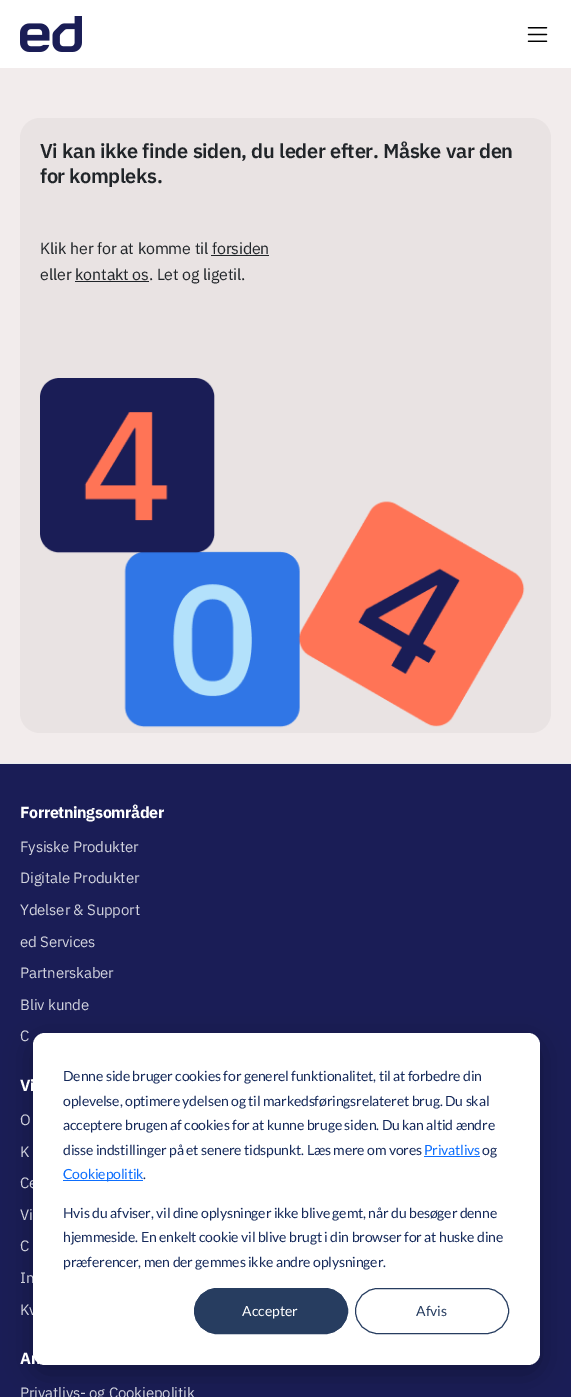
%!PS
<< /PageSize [571 1397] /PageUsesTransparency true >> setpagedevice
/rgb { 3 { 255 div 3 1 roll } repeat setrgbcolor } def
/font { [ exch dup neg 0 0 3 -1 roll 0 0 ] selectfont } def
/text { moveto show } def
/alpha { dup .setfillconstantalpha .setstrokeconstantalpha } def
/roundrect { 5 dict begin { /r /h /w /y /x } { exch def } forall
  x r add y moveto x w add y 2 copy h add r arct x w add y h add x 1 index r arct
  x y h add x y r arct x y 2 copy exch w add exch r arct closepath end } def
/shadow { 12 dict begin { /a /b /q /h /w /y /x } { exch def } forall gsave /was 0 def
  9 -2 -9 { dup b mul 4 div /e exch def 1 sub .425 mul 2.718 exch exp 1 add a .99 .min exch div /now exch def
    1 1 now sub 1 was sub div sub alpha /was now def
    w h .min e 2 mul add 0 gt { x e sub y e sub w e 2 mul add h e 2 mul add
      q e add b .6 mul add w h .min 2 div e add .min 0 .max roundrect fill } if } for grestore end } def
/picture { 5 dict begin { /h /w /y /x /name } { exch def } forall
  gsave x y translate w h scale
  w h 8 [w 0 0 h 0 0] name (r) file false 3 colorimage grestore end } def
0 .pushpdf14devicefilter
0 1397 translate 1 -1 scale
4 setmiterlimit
255 255 255 rgb
0 0 571 1397 rectfill
(img_01.rgb) 20 16 62 36 picture
(img_02.rgb) 527 27 21 15 picture
242 236 236 rgb
0 68 571 695 rectfill
233 227 227 rgb
20 118 531 615 20 roundrect fill
33 37 41 rgb
211 255 58 1 rectfill
75 281 74 1 rectfill
(img_03.rgb) 40 378 485 350 picture
26 29 86 rgb
0 764 571 633 rectfill
231 236 238 rgb
0 763 571 1 rectfill
0 0 0 rgb
33 1041 507 332 12 14 0.28 shadow
/IBMPlexSans-SemiBold 20 font
33 37 41 rgb
40 158 moveto 0.5 0 32 -0.4 0 (Vi kan ikke finde siden, du leder efter. Måske var den) awidthshow
40 183 moveto -0.4 0 (for kompleks.) ashow
/IBMPlexSans-Regular 16 font
40 254 moveto -0.15 0 (Klik her for at komme til forsiden) ashow
40 280 moveto -0.15 0 (eller kontakt os. Let og ligetil.) ashow
/IBMPlexSans-Bold 16 font
255 255 255 rgb
20 818 moveto -0.4 0 (Forretningsområder) ashow
/IBMPlexSans-Regular 15 font
209 210 221 rgb
20 852 moveto -0.15 0 (Fysiske Produkter) ashow
20 883 moveto -0.15 0 (Digitale Produkter) ashow
20 915 moveto -0.15 0 (Ydelser & Support) ashow
20 947 moveto -0.15 0 (ed Services) ashow
20 978 moveto -0.15 0 (Partnerskaber) ashow
20 1010 moveto -0.15 0 (Bliv kunde) ashow
20 1041 moveto -0.15 0 (C) ashow
/IBMPlexSans-Bold 16 font
255 255 255 rgb
20 1091 moveto -0.4 0 (Vi) ashow
/IBMPlexSans-Regular 15 font
209 210 221 rgb
20 1125 moveto -0.15 0 (O) ashow
20 1157 moveto -0.15 0 (K) ashow
20 1188 moveto -0.15 0 (Ce) ashow
20 1220 moveto -0.15 0 (Vi) ashow
20 1251 moveto -0.15 0 (C) ashow
20 1283 moveto -0.15 0 (In) ashow
20 1315 moveto -0.15 0 (Kv) ashow
/IBMPlexSans-Bold 16 font
255 255 255 rgb
20 1364 moveto -0.4 0 (An) ashow
/IBMPlexSans-Regular 15 font
209 210 221 rgb
20 1398 moveto -0.15 0 (Privatlivs- og Cookiepolitik) ashow
255 255 255 rgb
33 1033 507 332 12 roundrect fill
/Lato-Regular 14 font
21 41 90 rgb
63 1081 moveto -0.15 0 (Denne side bruger cookies for generel funktionalitet, til at forbedre din) ashow
63 1106 moveto -0.15 0 (oplevelse, optimere ydelsen og til markedsføringsrelateret brug. Du skal) ashow
63 1130 moveto -0.15 0 (acceptere brugen af cookies for at kunne bruge siden. Du kan altid ændre) ashow
63 1155 moveto -0.15 0 (disse indstillinger på et senere tidspunkt. Læs mere om vores) ashow
13 110 253 rgb
424 1155 moveto -0.15 0 (Privatlivs) ashow
424 1156 56 1 rectfill
21 41 90 rgb
482 1155 moveto -0.15 0 (og) ashow
13 110 253 rgb
63 1180 80 1 rectfill
63 1179 moveto -0.15 0 (Cookiepolitik) ashow
21 41 90 rgb
143 1179 moveto -0.15 0 (.) ashow
63 1218 moveto -0.15 0 (Hvis du afviser, vil dine oplysninger ikke blive gemt, når du besøger denne) ashow
63 1242 moveto -0.15 0 (hjemmeside. En enkelt cookie vil blive brugt i din browser for at huske dine) ashow
63 1267 moveto -0.15 0 (præferencer, men der gemmes ikke andre oplysninger.) ashow
39 61 96 rgb
194.5 1288.5 153 45 22.5 roundrect gsave fill grestore
stroke
255 255 255 rgb
(Accepter) 242 1316 text
39 61 96 rgb
355.5 1288.5 153 45 22.5 roundrect stroke
(Afvis) 416 1316 text
.poppdf14devicefilter showpage
